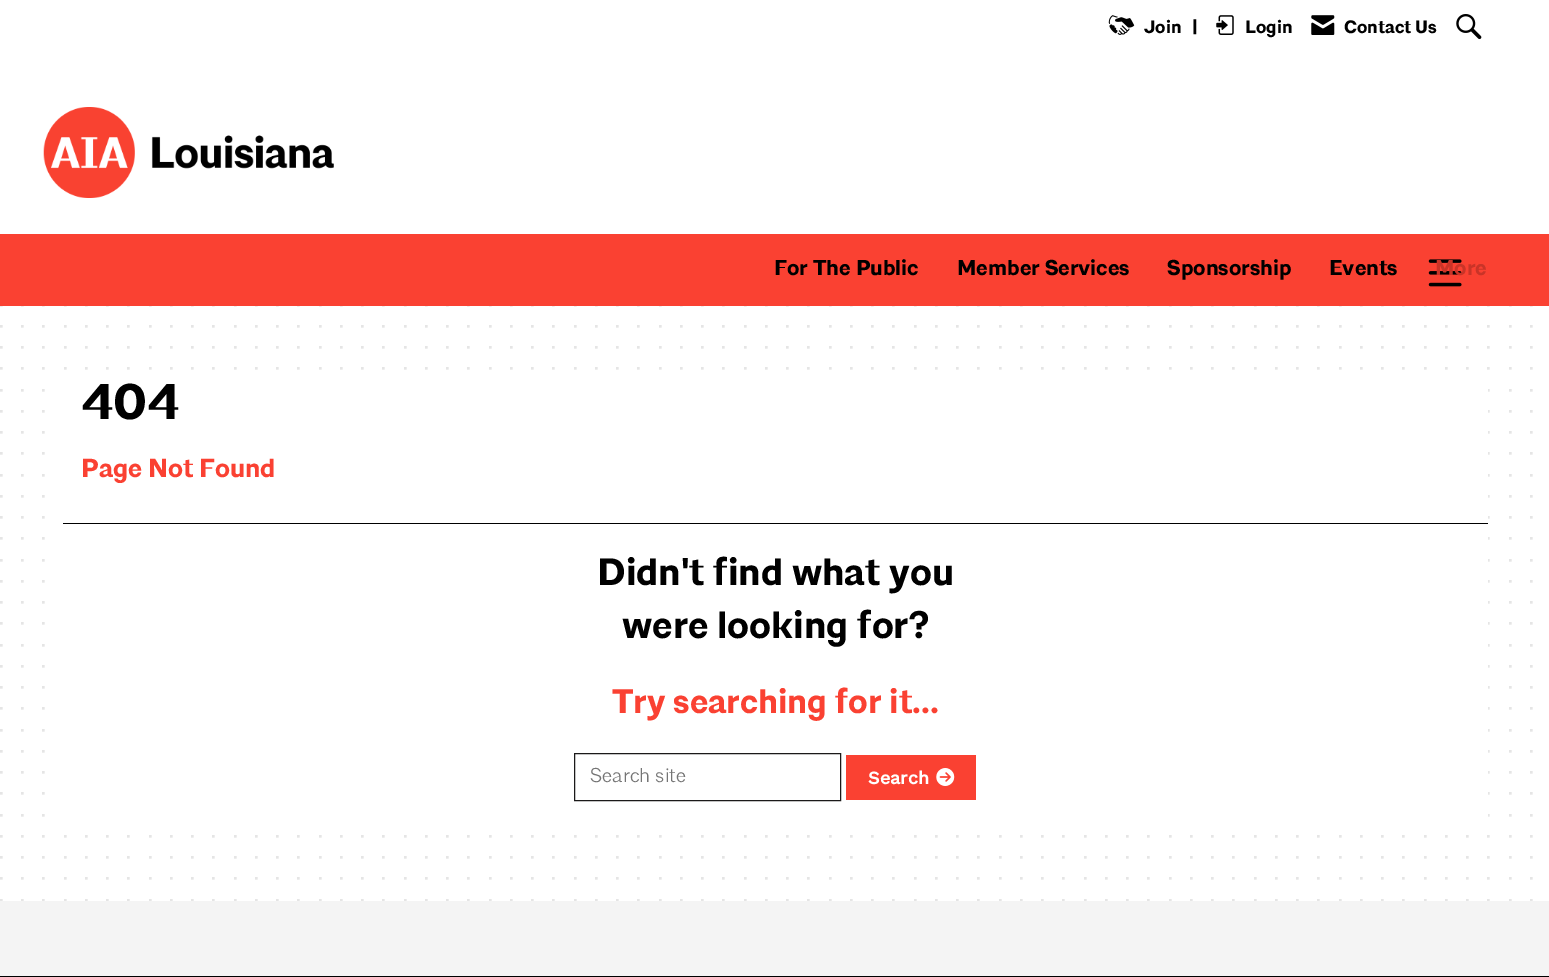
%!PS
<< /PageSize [1549 977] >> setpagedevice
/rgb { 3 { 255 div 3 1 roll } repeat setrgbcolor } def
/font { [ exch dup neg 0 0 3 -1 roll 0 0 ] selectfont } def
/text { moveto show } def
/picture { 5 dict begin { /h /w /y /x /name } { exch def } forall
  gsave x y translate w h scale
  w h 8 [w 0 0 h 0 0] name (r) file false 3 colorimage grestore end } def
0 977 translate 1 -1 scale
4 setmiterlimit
255 255 255 rgb
0 0 1549 977 rectfill
(img_01.rgb) 0 306 1533 595 picture
(img_02.rgb) 1108 15 27 20 picture
(img_03.rgb) 1216 15 18 20 picture
(img_04.rgb) 1311 15 24 20 picture
(img_05.rgb) 1456 14 26 26 picture
(img_06.rgb) 43 107 291 91 picture
250 65 50 rgb
0 234 1549 72 rectfill
(img_07.rgb) 1428 259 34 28 picture
255 255 255 rgb
64 389 1424 130 rectfill
0 0 0 rgb
63 523 1425 1 rectfill
255 255 255 rgb
64 537 1424 280 rectfill
27 26 26 rgb
574.5 753.5 266 47 rectstroke
250 65 50 rgb
846 755 130 45 rectfill
(img_08.rgb) 936 768 19 18 picture
244 244 244 rgb
0 901 1549 75 rectfill
0 0 0 rgb
0 976 1549 1 rectfill
/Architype-Bold 18 font
(Join) 1144 33 text
(|) 1192 33 text
(Login) 1245 33 text
(Contact Us) 1344 33 text
/Architype-Bold 21.5 font
(For The Public) 774 275 text
(Member Services) 957 275 text
(Sponsorship) 1167 275 text
(Events) 1329 275 text
201 52 40 rgb
(More) 1435 275 text
/Architype-Bold 50 font
0 0 0 rgb
(404) 81 419 text
/Architype-Bold 26 font
250 65 50 rgb
(Page Not Found) 81 477 text
/Architype-Bold 38 font
0 0 0 rgb
(Didn't find what you) 597 585 text
(were looking for?) 622 638 text
/Architype-Bold 34 font
250 65 50 rgb
(Try searching for it…) 612 713 text
/Architype-Regular 20 font
117 117 117 rgb
(Search site) 590 782 text
/WorkSans-Bold 18 font
255 255 255 rgb
(Search) 868 784 text
showpage
